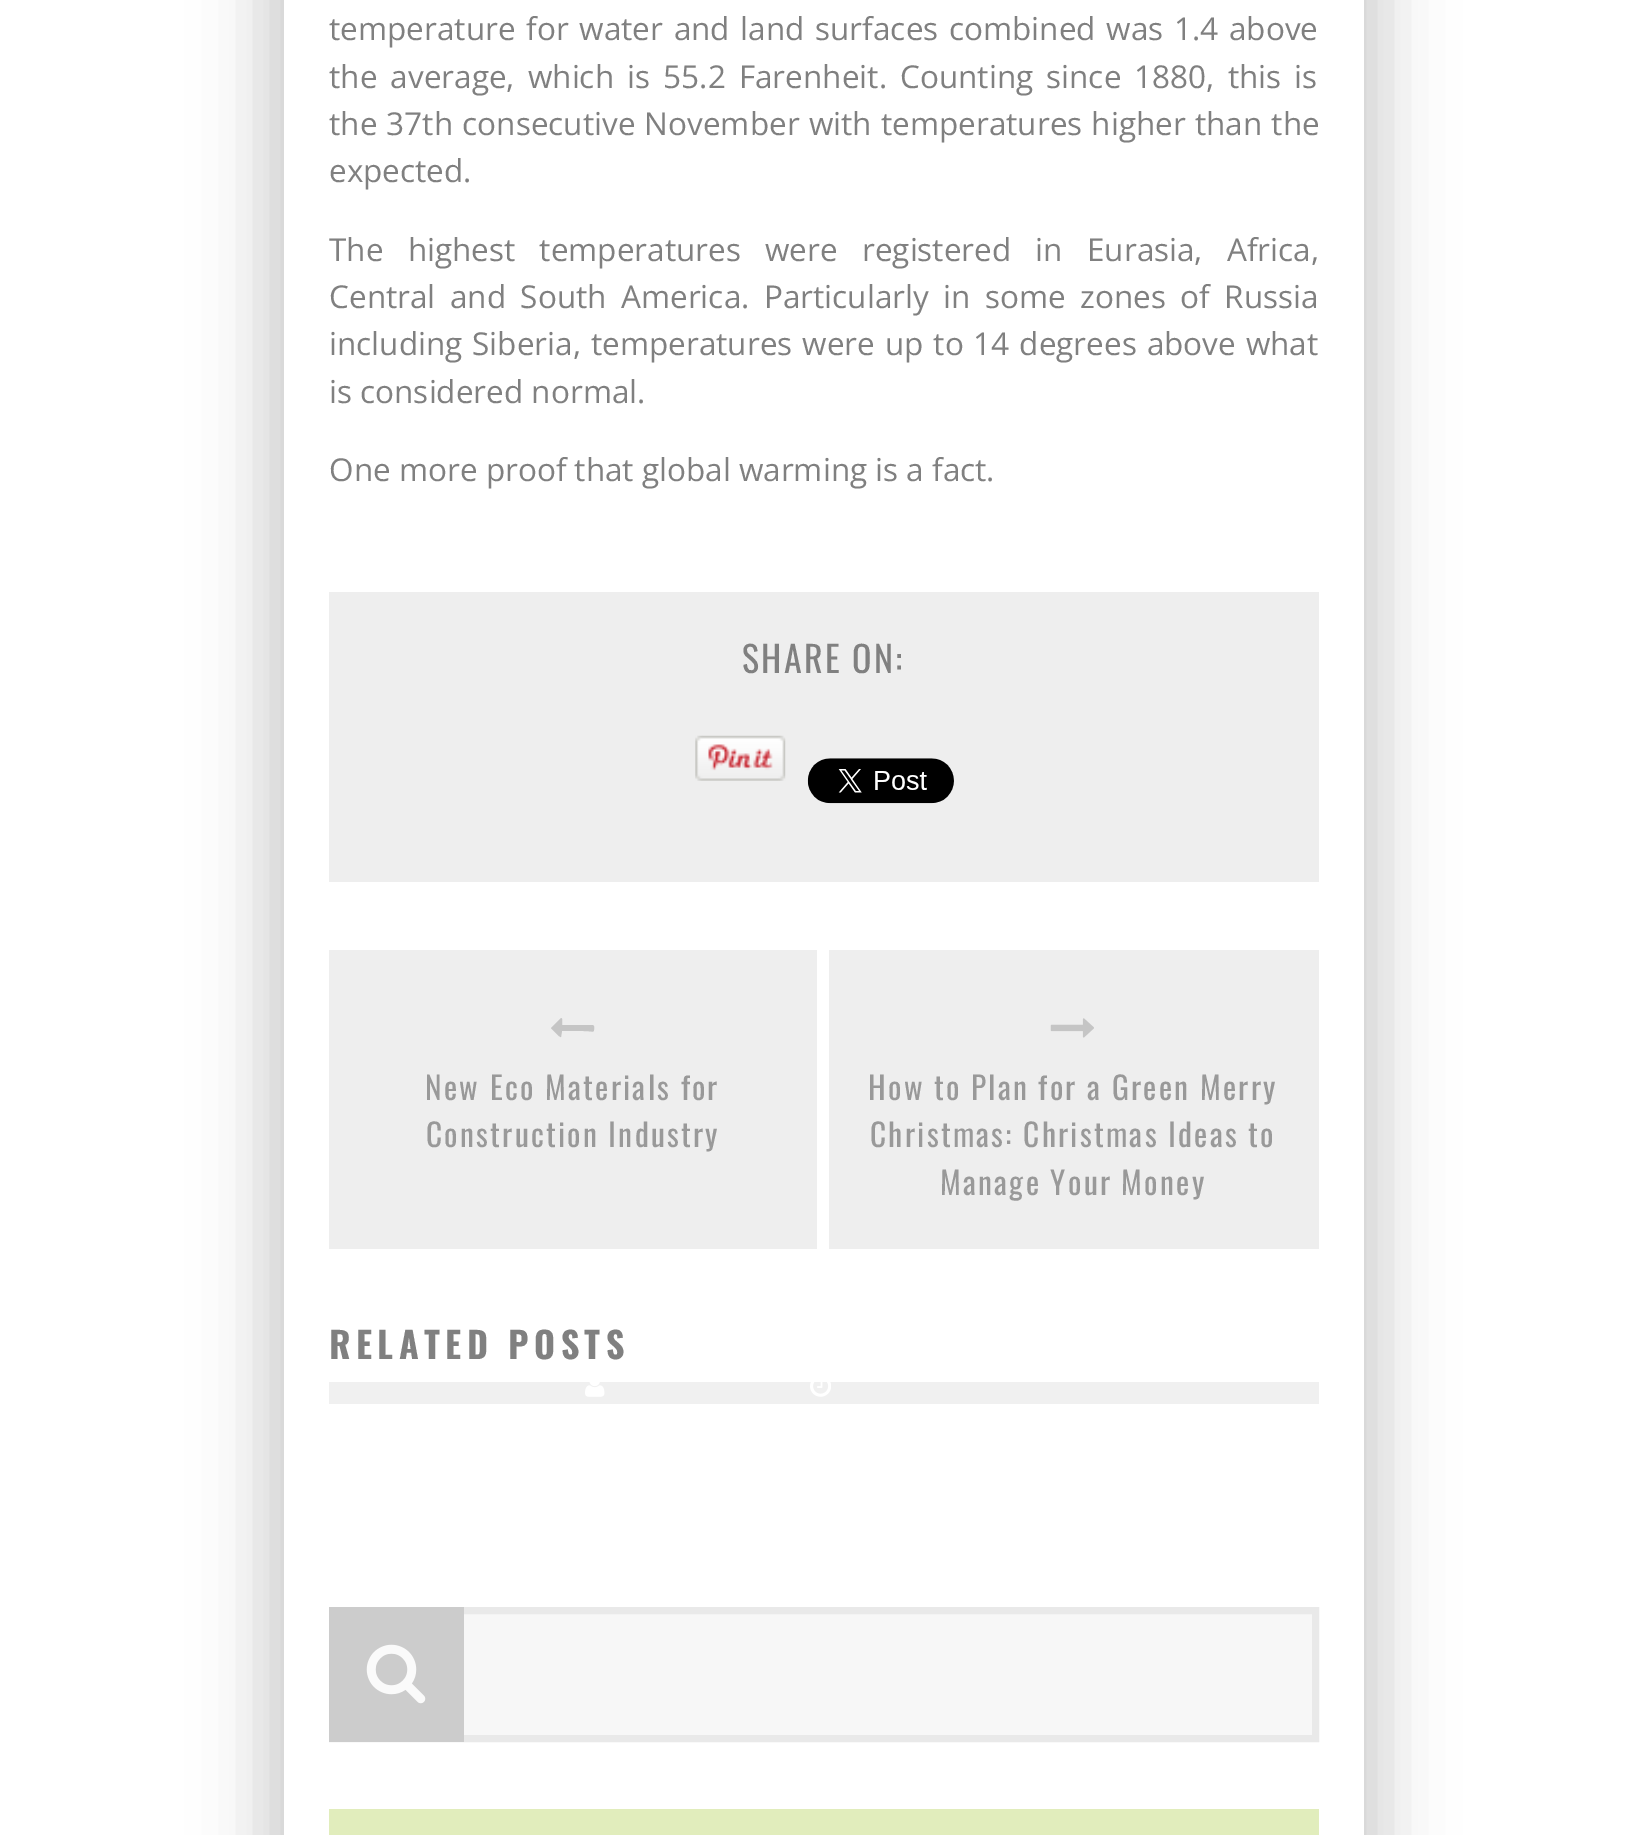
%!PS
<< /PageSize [1647 1835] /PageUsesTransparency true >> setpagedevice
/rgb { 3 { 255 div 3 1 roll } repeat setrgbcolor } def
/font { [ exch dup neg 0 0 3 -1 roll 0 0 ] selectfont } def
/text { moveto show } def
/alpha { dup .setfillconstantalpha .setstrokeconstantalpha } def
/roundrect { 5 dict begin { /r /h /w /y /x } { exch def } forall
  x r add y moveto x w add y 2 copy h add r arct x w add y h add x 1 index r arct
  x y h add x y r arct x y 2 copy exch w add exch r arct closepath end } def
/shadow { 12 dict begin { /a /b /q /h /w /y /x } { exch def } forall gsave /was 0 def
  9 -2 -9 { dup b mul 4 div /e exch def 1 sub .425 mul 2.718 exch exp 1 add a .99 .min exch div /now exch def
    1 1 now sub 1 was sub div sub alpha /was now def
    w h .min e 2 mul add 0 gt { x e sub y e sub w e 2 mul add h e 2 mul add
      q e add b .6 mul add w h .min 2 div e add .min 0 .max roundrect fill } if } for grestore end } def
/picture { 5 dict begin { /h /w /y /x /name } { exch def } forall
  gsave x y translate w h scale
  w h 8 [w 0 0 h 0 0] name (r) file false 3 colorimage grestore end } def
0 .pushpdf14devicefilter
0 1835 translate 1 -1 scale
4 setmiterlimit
255 255 255 rgb
0 0 1647 1835 rectfill
0 0 0 rgb
261 -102 1080 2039 0 34 0.15 shadow
306 -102 1080 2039 0 34 0.15 shadow
255 255 255 rgb
284 0 1080 1835 rectfill
238 238 238 rgb
329 592 990 290 rectfill
(img_01.rgb) 695 735 91 46 picture
(img_02.rgb) 807 758 147 46 picture
329 950 990 299 rectfill
255 255 255 rgb
817 950 12 299 rectfill
197 197 197 rgb
594 1026 moveto 0 8 1 5 -11 5 rcurveto -21 0 rlineto -1 6 rlineto -1 1 -10 -9 -10 -9 rcurveto 10 -10 rlineto 2 0 1 6 1 7 rcurveto 31 0 rlineto closepath fill
(img_03.rgb) 1050 1018 44 20 picture
240 240 240 rgb
329 1382 990 22 rectfill
(img_04.rgb) 585 1382 20 15 picture
(img_05.rgb) 810 1382 21 15 picture
247 247 247 rgb
464 1614 848 121 rectfill
233 233 233 rgb
7 setlinewidth
332.5 1610.5 983 128 rectstroke
204 204 204 rgb
329 1607 135 135 rectfill
(img_06.rgb) 366 1644 60 60 picture
225 237 188 rgb
329 1809 990 26 rectfill
/OpenSans-Regular 31.5 font
128 128 128 rgb
329 40 moveto 2.5 0 32 (temperature for water and land surfaces combined was 1.4 above) widthshow
329 88 moveto 5 0 32 (the average, which is 55.2 Farenheit. Counting since 1880, this is) widthshow
329 135 moveto 1 0 32 (the 37th consecutive November with temperatures higher than the) widthshow
(expected.) 329 182 text
329 261 moveto 16 0 32 (The highest temperatures were registered in Eurasia, Africa,) widthshow
329 308 moveto 6.25 0 32 (Central and South America. Particularly in some zones of Russia) widthshow
329 355 moveto 1.75 0 32 (including Siberia, temperatures were up to 14 degrees above what) widthshow
(is considered normal.) 329 403 text
(One more proof that global warming is a fact.) 329 481 text
/Oswald-Regular 36 font
742 673 moveto 2.25 0 (SHARE ON:) ashow
/Oswald-Regular 31.5 font
153 153 153 rgb
425 1100 moveto 2.25 0 (New Eco Materials for) ashow
426 1147 moveto 2.25 0 (Construction Industry) ashow
868 1100 moveto 2.25 0 (How to Plan for a Green Merry) ashow
870 1147 moveto 2.25 0 (Christmas: Christmas Ideas to) ashow
940 1195 moveto 2.25 0 (Manage Your Money) ashow
/Oswald-Bold 36 font
128 128 128 rgb
329 1359 moveto 5.4 0 (RELATED POSTS) ashow
.poppdf14devicefilter showpage
